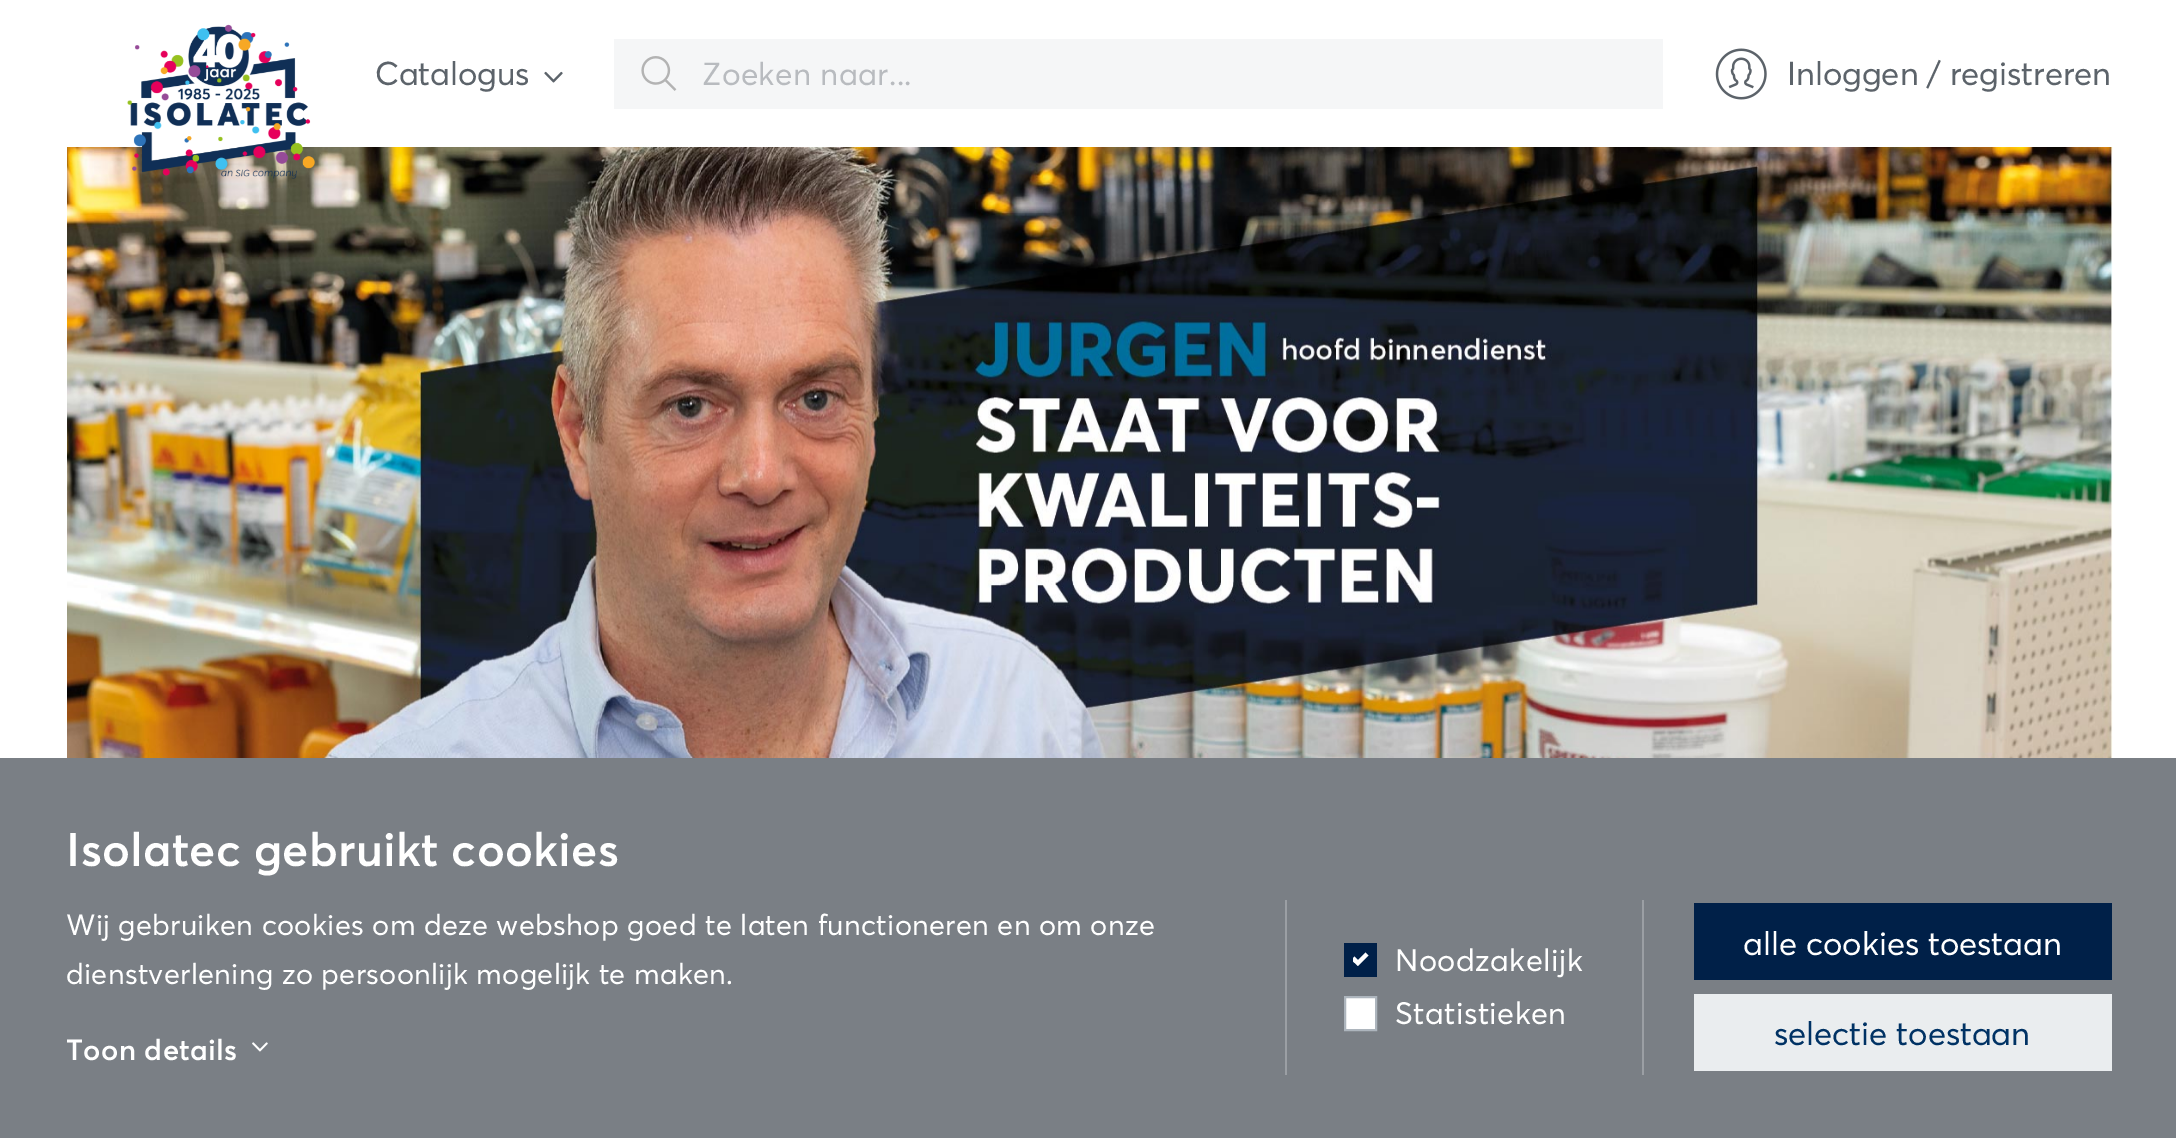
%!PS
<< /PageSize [2176 1138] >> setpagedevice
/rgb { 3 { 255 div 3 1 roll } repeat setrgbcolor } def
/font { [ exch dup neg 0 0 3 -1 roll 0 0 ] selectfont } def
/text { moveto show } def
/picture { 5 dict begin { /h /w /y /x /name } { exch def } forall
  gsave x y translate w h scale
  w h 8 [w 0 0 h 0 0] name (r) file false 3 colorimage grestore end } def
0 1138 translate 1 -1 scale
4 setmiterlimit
255 255 255 rgb
0 0 2176 1138 rectfill
(img_05.rgb) 67 147 2046 611 picture
(img_01.rgb) 127 24 188 155 picture
(img_02.rgb) 544 71 19 12 picture
245 246 247 rgb
614 39 1049 70 rectfill
(img_03.rgb) 641 56 36 35 picture
(img_04.rgb) 1715 48 52 52 picture
122 127 133 rgb
0 758 2176 380 rectfill
(img_06.rgb) 252 1042 16 10 picture
155 159 164 rgb
1285 900 2 175 rectfill
0 32 72 rgb
1344 943 33 34 rectfill
gsave
1353 952 17 18 rectclip
255 255 255 rgb
1365.5 952.5 moveto -7.5 7.5 rlineto -3.5 -3.5 rlineto -3 3.5 rlineto 6.5 6 rlineto 10.5 -10.5 rlineto closepath fill
grestore
255 255 255 rgb
1345 997 moveto 31 0 rlineto 0 33 rlineto -31 0 rlineto closepath gsave fill grestore
173 181 189 rgb
2 setlinewidth
stroke
155 159 164 rgb
1642 900 2 175 rectfill
0 32 72 rgb
1694 903 418 77 rectfill
234 237 239 rgb
1694 994 418 77 rectfill
/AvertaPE-Regular 32.75 font
92 99 106 rgb
(Catalogus) 375 85 text
/AvertaPE-Regular 31.5 font
184 187 191 rgb
702 85 moveto 0.35 0 (Zoeken naar...) ashow
/AvertaPE-Regular 32.75 font
92 99 106 rgb
(Inloggen / registreren) 1787 85 text
/AvertaPE-SemiBold 46.6 font
255 255 255 rgb
66 866 moveto 0.35 0 (Isolatec gebruikt cookies) ashow
/AvertaPE-Regular 28.9 font
66 935 moveto 0.35 0 (Wij gebruiken cookies om deze webshop goed te laten functioneren en om onze) ashow
66 984 moveto 0.35 0 (dienstverlening zo persoonlijk mogelijk te maken.) ashow
/AvertaPE-SemiBold 28.9 font
66 1060 moveto 0.35 0 (Toon details) ashow
/AvertaPE-Regular 30.75 font
1395 971 moveto 0.5 0 (Noodzakelijk) ashow
1395 1024 moveto 0.5 0 (Statistieken) ashow
/AvertaPE-Regular 32.75 font
(alle cookies toestaan) 1743 955 text
0 50 100 rgb
(selectie toestaan) 1774 1045 text
showpage
